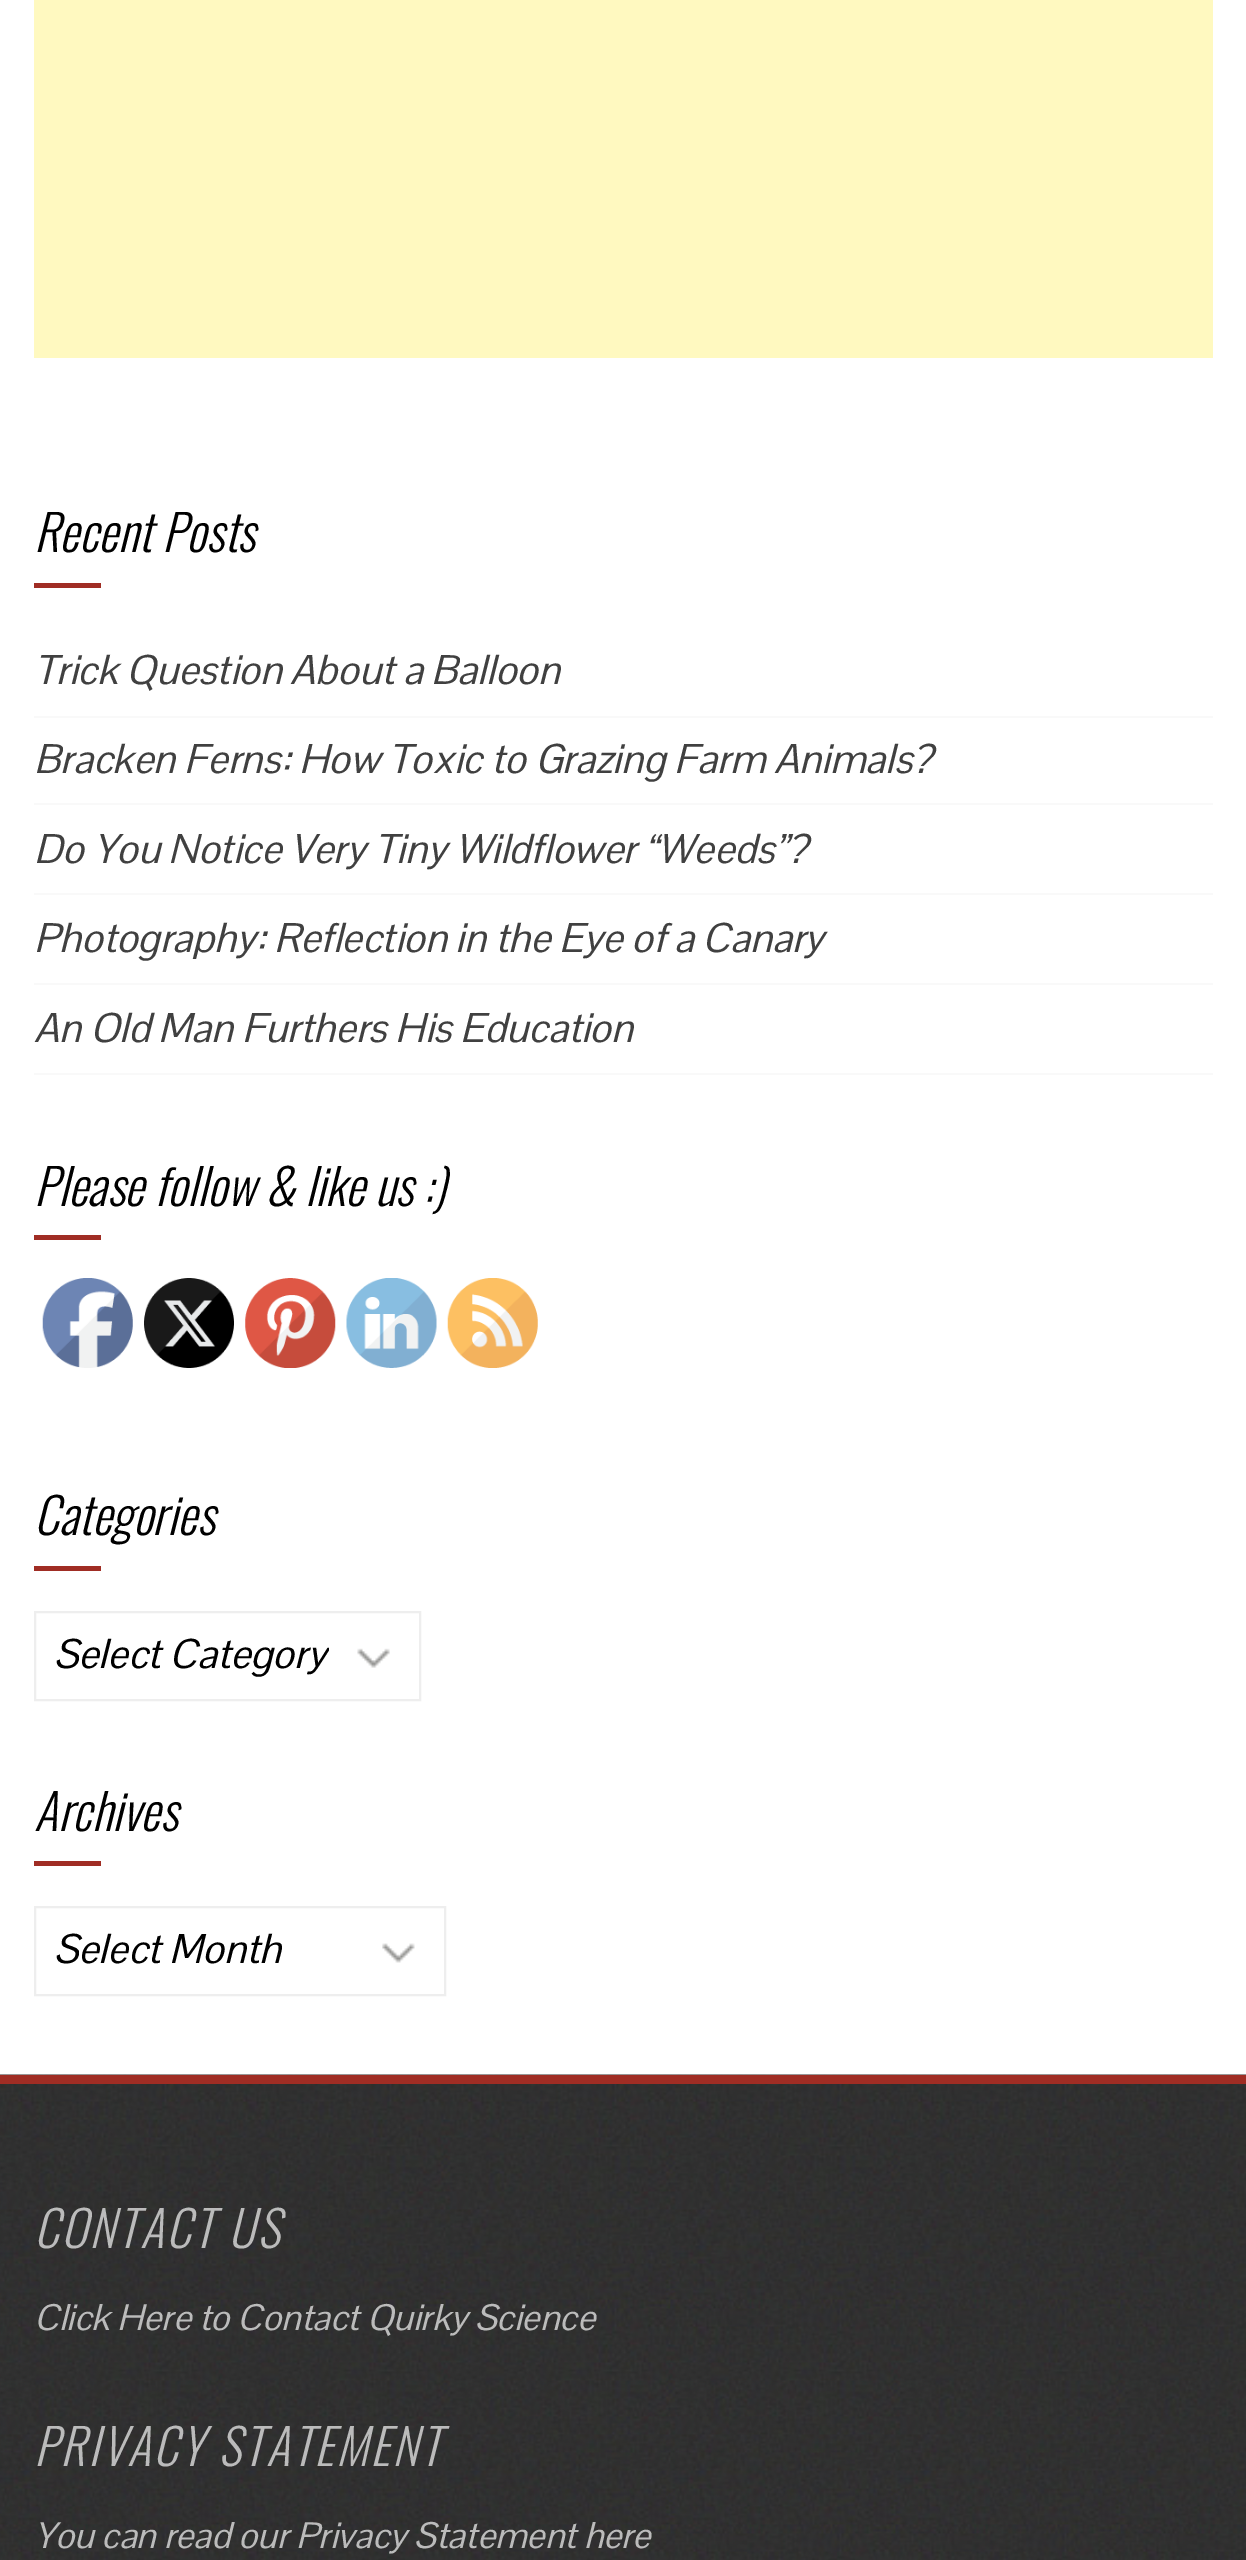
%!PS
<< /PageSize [1246 2560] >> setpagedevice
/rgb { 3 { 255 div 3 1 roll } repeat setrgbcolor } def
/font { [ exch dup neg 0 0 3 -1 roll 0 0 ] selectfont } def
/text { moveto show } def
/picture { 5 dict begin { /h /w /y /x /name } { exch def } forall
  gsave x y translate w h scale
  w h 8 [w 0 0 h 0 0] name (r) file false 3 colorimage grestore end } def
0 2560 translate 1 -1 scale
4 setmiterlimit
255 255 255 rgb
0 0 1246 2560 rectfill
255 249 192 rgb
34 0 1179 358 rectfill
160 45 36 rgb
34 583 67 5 rectfill
249 249 249 rgb
34 716 1179 2 rectfill
34 803 1179 2 rectfill
34 893 1179 2 rectfill
34 983 1179 2 rectfill
34 1073 1179 2 rectfill
160 45 36 rgb
34 1235 67 5 rectfill
(img_01.rgb) 42 1278 91 90 picture
(img_02.rgb) 144 1278 90 90 picture
(img_03.rgb) 245 1278 91 90 picture
(img_04.rgb) 346 1278 91 90 picture
(img_05.rgb) 447 1278 91 90 picture
34 1566 67 5 rectfill
(img_06.rgb) 357 1648 33 20 picture
238 238 238 rgb
2 setlinewidth
35 1612 385 88 rectstroke
160 45 36 rgb
34 1861 67 5 rectfill
(img_07.rgb) 382 1943 33 20 picture
238 238 238 rgb
35 1907 410 88 rectstroke
(img_08.rgb) 0 2074 1246 486 picture
160 45 36 rgb
0 2075 1246 9 rectfill
/Oswald-LightItalic 49.5 font
0 0 0 rgb
(Recent Posts) 34 552 text
/PontanoSans-Italic 40.5 font
64 64 64 rgb
(Trick Question About a Balloon) 34 684 text
(Bracken Ferns: How Toxic to Grazing Farm Animals?) 34 773 text
(Do You Notice Very Tiny Wildflower “Weeds”?) 34 863 text
(Photography: Reflection in the Eye of a Canary) 34 952 text
(An Old Man Furthers His Education) 34 1042 text
/Oswald-LightItalic 49.5 font
0 0 0 rgb
(Please follow & like us :\)) 34 1206 text
(Categories) 34 1535 text
gsave
54 1622 275 66 rectclip
/PontanoSans-Italic 40.5 font
(Select Category) 54 1668 text
grestore
(Archives) 34 1831 text
/PontanoSans-Italic 40.5 font
(Select Month) 54 1963 text
/Oswald-LightItalic 49.5 font
187 187 187 rgb
34 2248 moveto 2.25 0 (CONTACT US) ashow
/PontanoSans-Italic 36 font
(Click Here to Contact Quirky Science) 34 2330 text
/Oswald-LightItalic 49.5 font
34 2466 moveto 2.25 0 (PRIVACY STATEMENT) ashow
/PontanoSans-Italic 36 font
(You can read our Privacy Statement here) 34 2548 text
showpage
